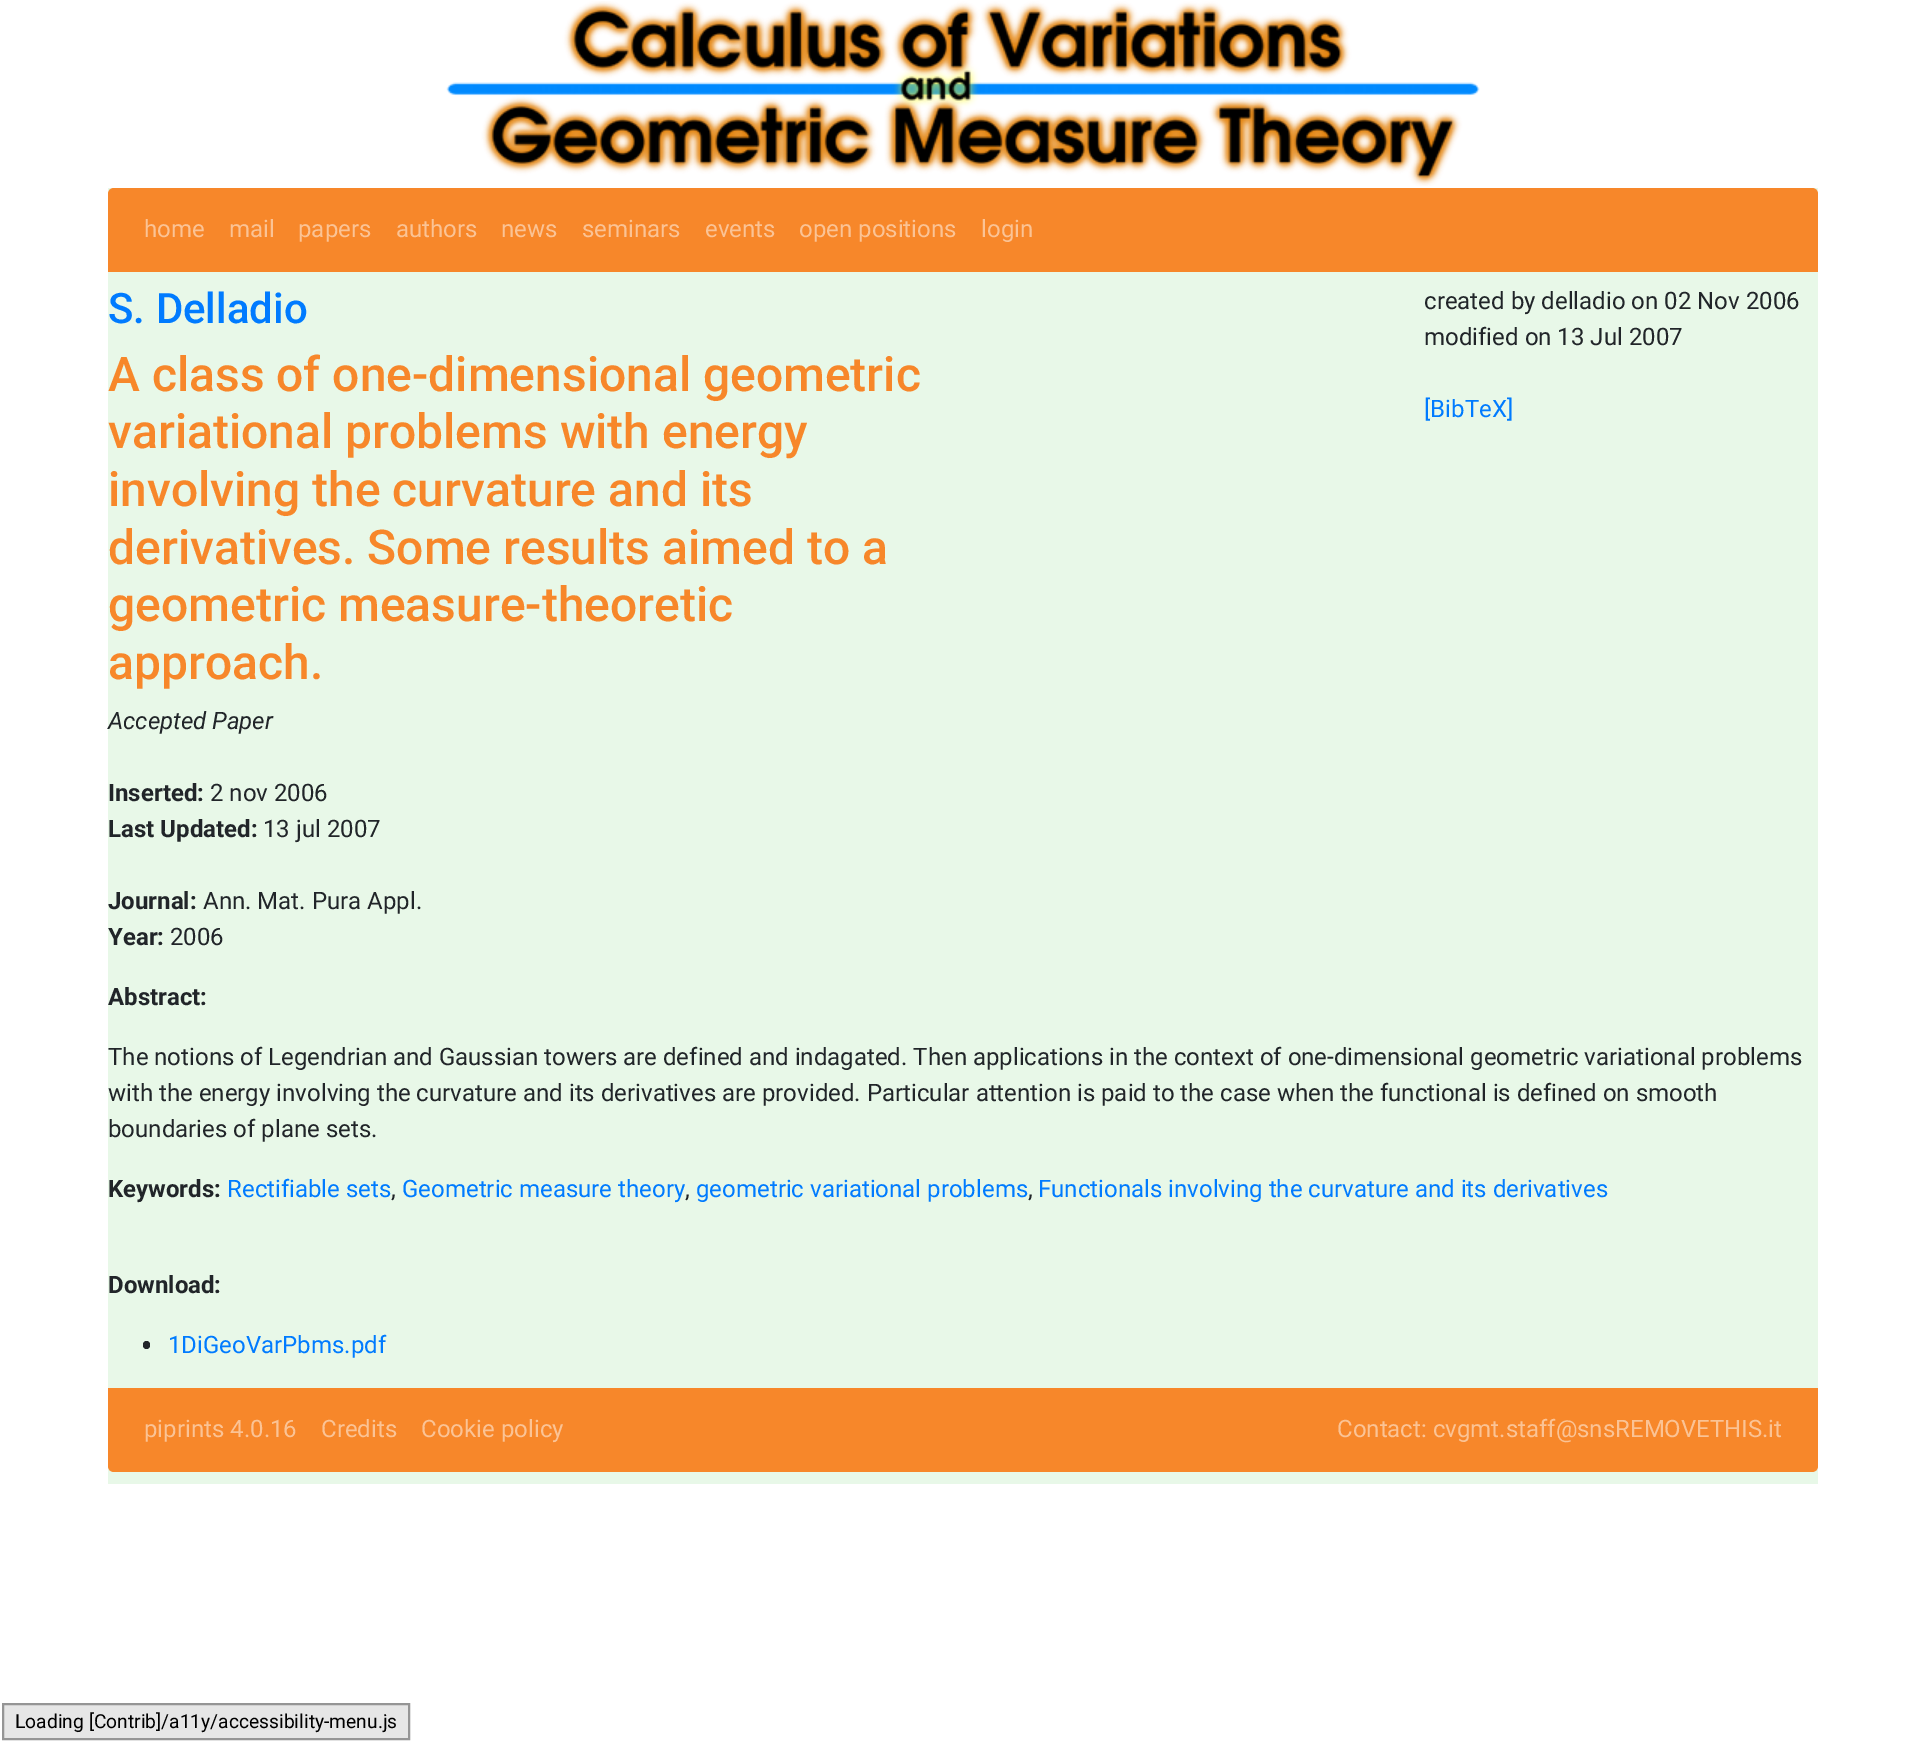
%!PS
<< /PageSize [1925 1742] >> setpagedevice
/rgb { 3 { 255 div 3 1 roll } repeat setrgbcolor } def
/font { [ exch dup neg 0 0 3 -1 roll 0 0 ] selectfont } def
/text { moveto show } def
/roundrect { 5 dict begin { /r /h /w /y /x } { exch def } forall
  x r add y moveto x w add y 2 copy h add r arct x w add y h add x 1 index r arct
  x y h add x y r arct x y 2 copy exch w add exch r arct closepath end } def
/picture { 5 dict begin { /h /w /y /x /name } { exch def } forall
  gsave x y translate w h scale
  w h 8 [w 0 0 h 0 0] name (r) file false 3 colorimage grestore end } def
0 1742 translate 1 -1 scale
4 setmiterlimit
255 255 255 rgb
0 0 1925 1742 rectfill
232 248 232 rgb
108 188 1710 1296 rectfill
(img_01.rgb) 446 1 1034 185 picture
247 135 42 rgb
114 188 moveto 1698 0 rlineto 3.5 0 6 2.5 6 6 rcurveto 0 78 rlineto -1710 0 rlineto 0 -78 rlineto 0 -3.5 2.5 -6 6 -6 rcurveto closepath fill
33 37 41 rgb
143 1341 7 8 3.5 roundrect fill
247 135 42 rgb
108 1388 moveto 1710 0 rlineto 0 78 rlineto 0 3.5 -2.5 6 -6 6 rcurveto -1698 0 rlineto -3.5 0 -6 -2.5 -6 -6 rcurveto closepath fill
230 230 230 rgb
3 1704 moveto 406 0 rlineto 0 35 rlineto -406 0 rlineto closepath gsave fill grestore
149 149 149 rgb
2 setlinewidth
stroke
/Roboto-Regular 24 font
251 195 149 rgb
(home) 144 237 text
(mail) 229 237 text
(papers) 298 237 text
(authors) 396 237 text
(news) 501 237 text
(seminars) 582 237 text
(events) 705 237 text
(open positions) 799 237 text
(login) 981 237 text
/Roboto-Medium 42 font
0 123 255 rgb
(S. Delladio) 108 323 text
/Roboto-Medium 48 font
247 135 42 rgb
(A class of one-dimensional geometric) 108 391 text
(variational problems with energy) 108 448 text
(involving the curvature and its) 108 506 text
(derivatives. Some results aimed to a) 108 564 text
(geometric measure-theoretic) 108 621 text
(approach.) 108 679 text
/Roboto-Regular 24 font
33 37 41 rgb
(created by delladio on 02 Nov 2006) 1424 309 text
(modified on 13 Jul 2007) 1424 345 text
0 123 255 rgb
([BibTeX]) 1424 417 text
/Roboto-Italic 24 font
33 37 41 rgb
(Accepted Paper) 108 729 text
/Roboto-Bold 24 font
(Inserted:) 108 801 text
/Roboto-Regular 24 font
(2 nov 2006) 210 801 text
/Roboto-Bold 24 font
(Last Updated:) 108 837 text
/Roboto-Regular 24 font
(13 jul 2007) 263 837 text
/Roboto-Bold 24 font
(Journal:) 108 909 text
/Roboto-Regular 24 font
(Ann. Mat. Pura Appl.) 203 909 text
/Roboto-Bold 24 font
(Year:) 108 945 text
/Roboto-Regular 24 font
(2006) 170 945 text
/Roboto-Bold 24 font
(Abstract:) 108 1005 text
/Roboto-Regular 24 font
(The notions of Legendrian and Gaussian towers are defined and indagated. Then applications in the context of one-dimensional geometric variational problems) 108 1065 text
(with the energy involving the curvature and its derivatives are provided. Particular attention is paid to the case when the functional is defined on smooth) 108 1101 text
(boundaries of plane sets.) 108 1137 text
/Roboto-Bold 24 font
(Keywords:) 108 1197 text
/Roboto-Regular 24 font
0 123 255 rgb
(Rectifiable sets) 227 1197 text
33 37 41 rgb
(,) 391 1197 text
0 123 255 rgb
(Geometric measure theory) 402 1197 text
33 37 41 rgb
(,) 685 1197 text
0 123 255 rgb
(geometric variational problems) 696 1197 text
33 37 41 rgb
(,) 1028 1197 text
0 123 255 rgb
(Functionals involving the curvature and its derivatives) 1038 1197 text
/Roboto-Bold 24 font
33 37 41 rgb
(Download:) 108 1293 text
/Roboto-Regular 24 font
0 123 255 rgb
(1DiGeoVarPbms.pdf) 168 1353 text
251 195 149 rgb
(piprints 4.0.16) 144 1437 text
(Credits) 321 1437 text
(Cookie policy) 421 1437 text
(Contact: cvgmt.staff@snsREMOVETHIS.it) 1337 1437 text
/Roboto-Regular 19.25 font
0 0 0 rgb
(Loading [Contrib]/a11y/accessibility-menu.js) 15 1728 text
showpage
